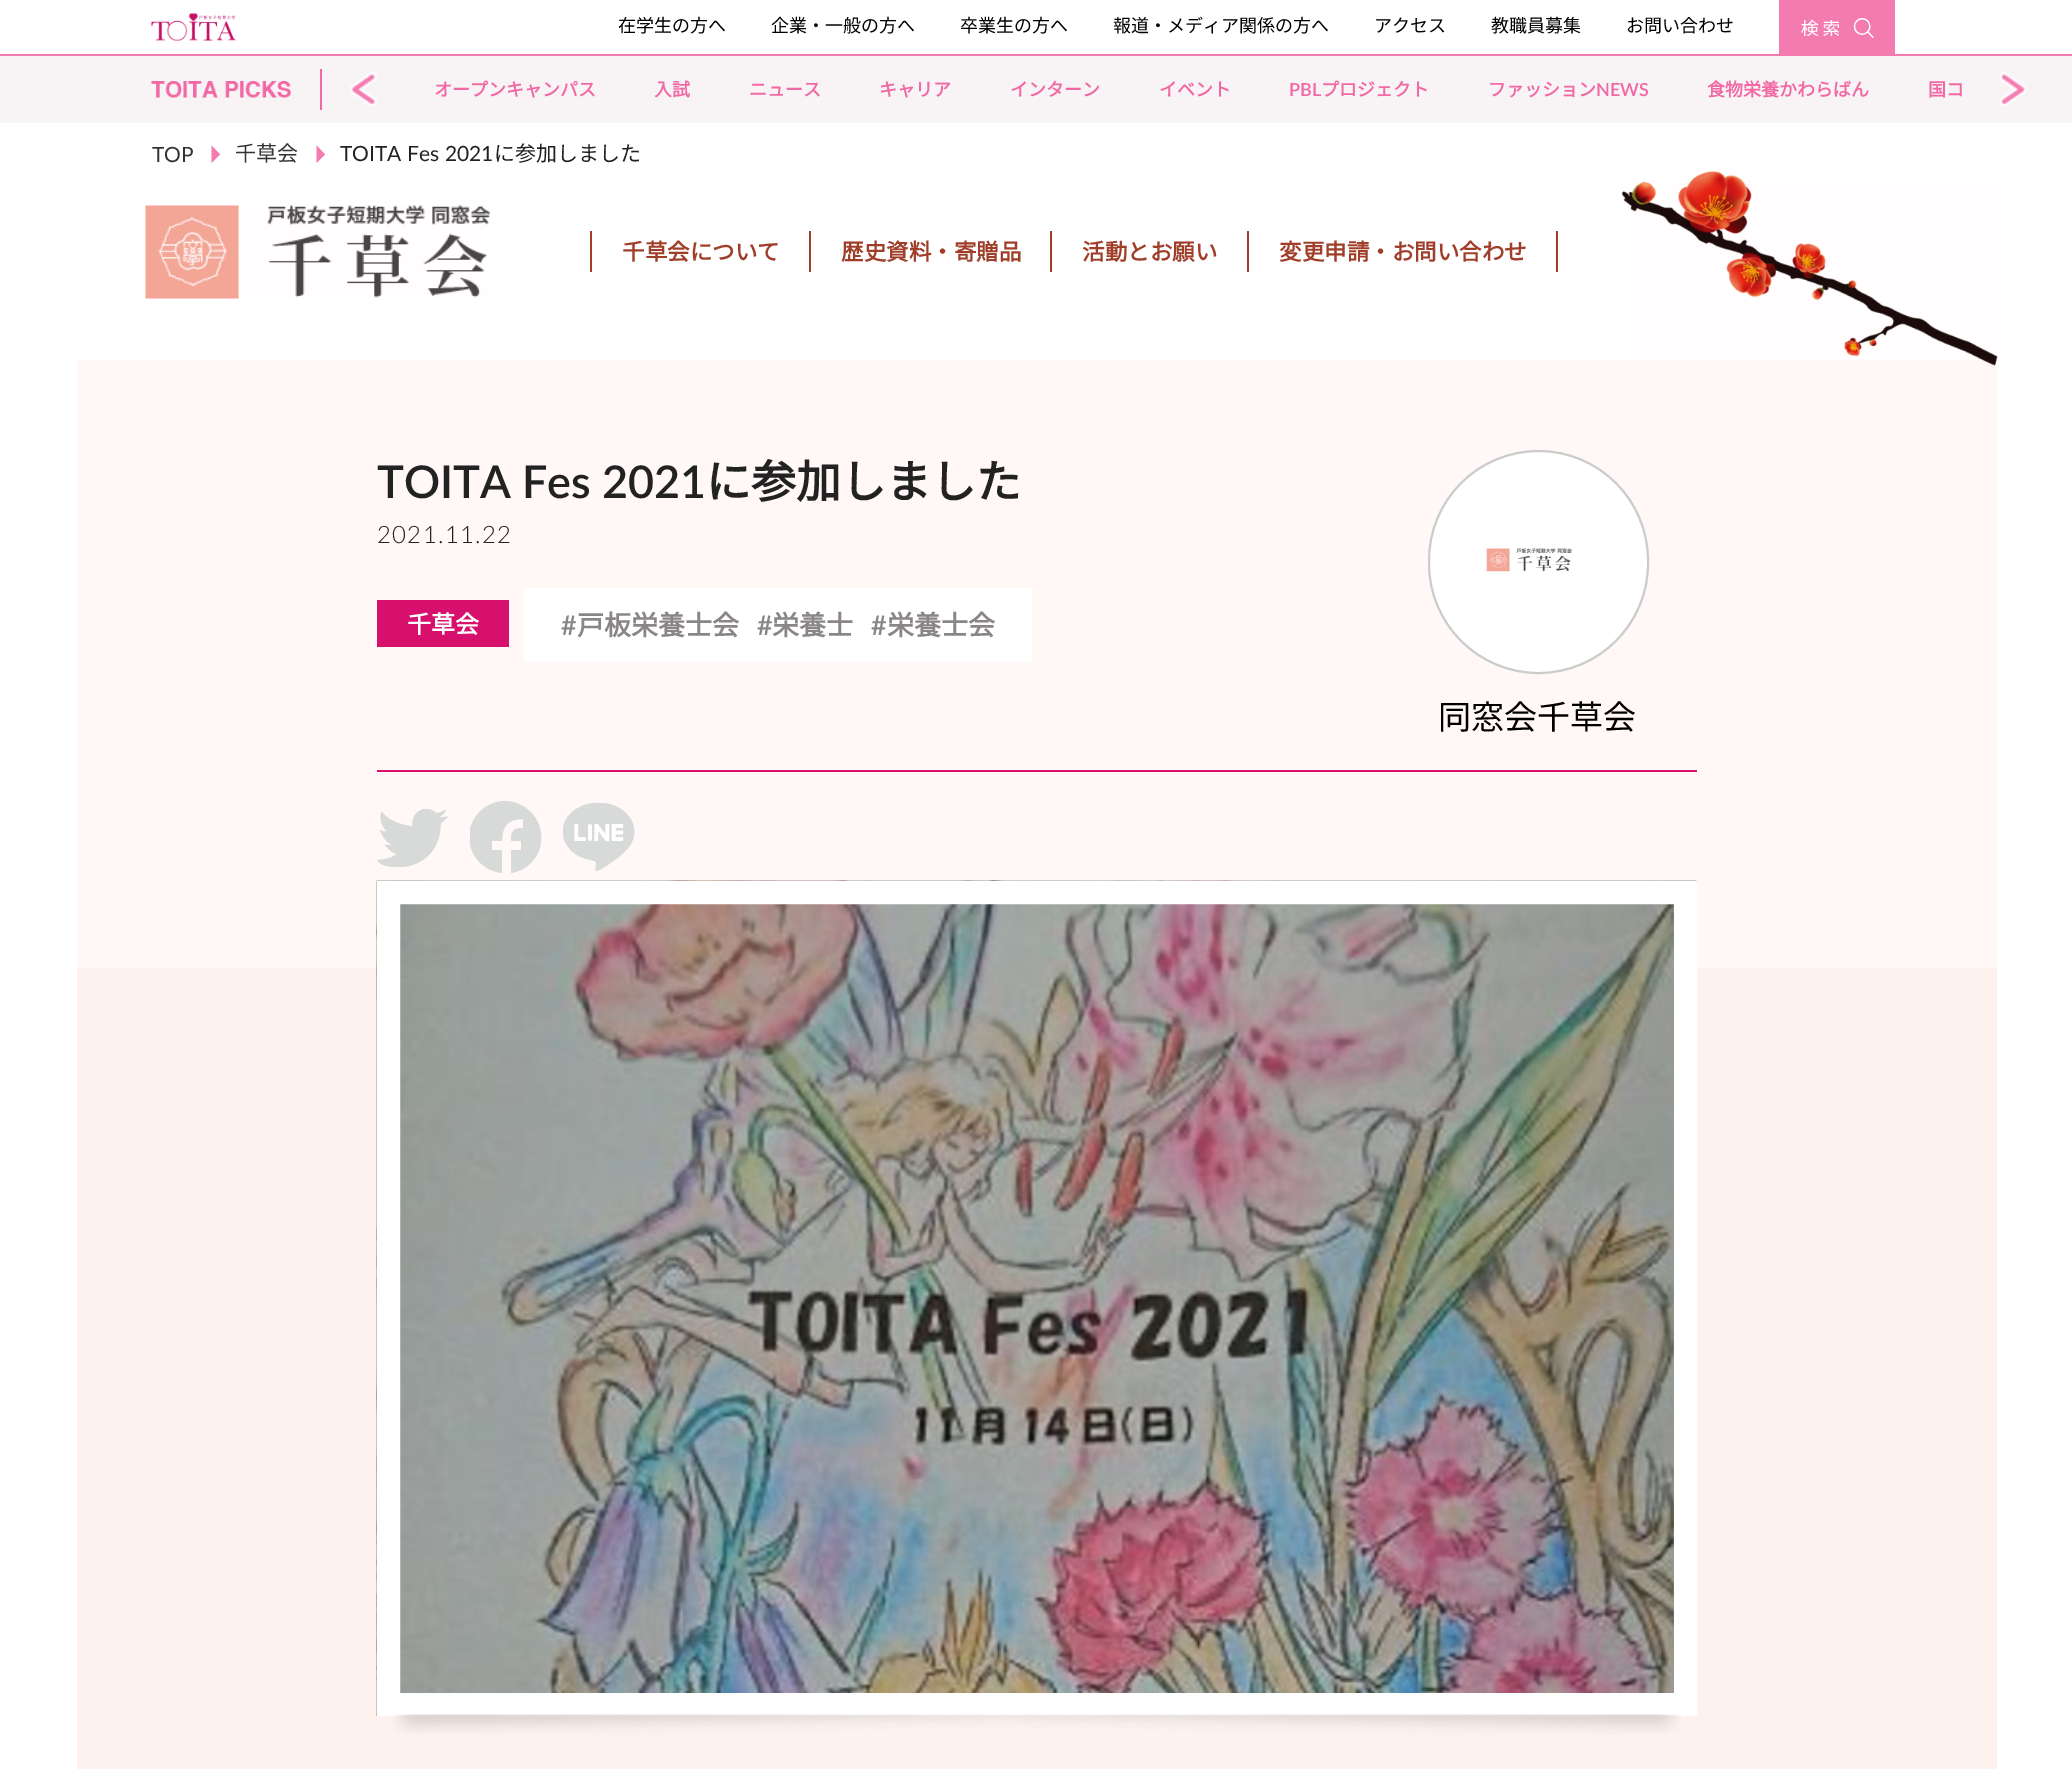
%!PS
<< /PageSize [2072 1769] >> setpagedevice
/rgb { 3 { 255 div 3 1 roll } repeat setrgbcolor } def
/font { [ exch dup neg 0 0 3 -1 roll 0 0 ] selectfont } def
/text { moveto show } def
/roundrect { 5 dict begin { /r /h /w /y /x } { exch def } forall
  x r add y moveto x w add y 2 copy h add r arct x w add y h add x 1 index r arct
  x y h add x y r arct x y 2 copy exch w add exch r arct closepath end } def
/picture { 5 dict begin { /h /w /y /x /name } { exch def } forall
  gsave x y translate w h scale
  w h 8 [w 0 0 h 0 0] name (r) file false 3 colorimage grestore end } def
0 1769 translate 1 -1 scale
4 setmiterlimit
255 255 255 rgb
0 0 2072 1769 rectfill
(img_01.rgb) 151 13 85 28 picture
244 123 176 rgb
1779 0 116 54 rectfill
(img_02.rgb) 1801 18 73 20 picture
0 54 2072 2 rectfill
248 244 245 rgb
0 56 2072 67 rectfill
(img_03.rgb) 151 81 140 17 picture
242 104 164 rgb
320 69 2 41 rectfill
(img_04.rgb) 350 72 27 35 picture
(img_05.rgb) 1999 72 28 35 picture
244 123 176 rgb
211.5 163 moveto 0 -17.5 rlineto 8.5 9 rlineto closepath fill
316.5 163 moveto 0 -17.5 rlineto 8.5 9 rlineto closepath fill
(img_06.rgb) 145 205 346 94 picture
160 62 42 rgb
590 231 2 41 rectfill
809 231 2 41 rectfill
1050 231 2 41 rectfill
1556 231 2 41 rectfill
1247 231 2 41 rectfill
255 248 247 rgb
77 360 1920 608 rectfill
(img_07.rgb) 1621 171 377 195 picture
253 242 238 rgb
77 968 1920 801 rectfill
214 16 108 rgb
377 600 132 47 rectfill
255 255 255 rgb
524 588 508 74 rectfill
(img_08.rgb) 1428 450 220 223 picture
204 204 204 rgb
2 setlinewidth
1429 451 219 222 109.5 roundrect stroke
214 16 108 rgb
377 770 1320 2 rectfill
(img_09.rgb) 377 809 72 58 picture
gsave
470 801 72 72 rectclip
216 217 217 rgb
502 873 moveto -19 -2 -33 -18 -33 -37 rcurveto 1 -19 16 -34 35 -35 rcurveto 19 0 35 14 37 33 rcurveto 2 19 -11 36 -30 39 rcurveto 0 -23 rlineto 10 0 rlineto 0 -9 rlineto -10 0 rlineto 0 -10 2 -13 12 -13 rcurveto 0 -9 rlineto -15 0 -21 7 -21 22 rcurveto -10 0 rlineto 0 9 rlineto 10 0 rlineto closepath fill
grestore
(img_10.rgb) 563 803 72 68 picture
(img_11.rgb) 376 880 1321 836 picture
255 255 255 rgb
23 setlinewidth
388.5 892.5 1297 812 rectstroke
(img_12.rgb) 393 1714 1288 20 picture
/NotoSansJP-Thin 18 font
0 0 0 rgb
(在学生の方へ) 618 32 text
(企業・一般の方へ) 771 32 text
(卒業生の方へ) 960 32 text
(報道・メディア関係の方へ) 1113 32 text
(アクセス) 1374 32 text
(教職員募集) 1491 32 text
(お問い合わせ) 1626 32 text
/NotoSansJP-Bold 18 font
242 104 164 rgb
(オープンキャンパス) 434 96 text
(入試) 654 96 text
(ニュース) 749 96 text
(キャリア) 879 96 text
(インターン) 1010 96 text
(イベント) 1159 96 text
/Lato-SemiBold 18 font
(PBL) 1289 96 text
/NotoSansJP-Bold 18 font
(プロジェクト) 1321 96 text
(ファッション) 1488 96 text
/Lato-SemiBold 18 font
(NEWS) 1596 96 text
/NotoSansJP-Bold 18 font
(食物栄養かわらばん) 1707 96 text
(国コ) 1928 96 text
/Lato-Regular 21 font
51 51 51 rgb
(TOP) 152 162 text
/NotoSansJP-Thin 21 font
(千草会) 235 161 text
/Lato-Regular 21 font
34 34 34 rgb
(TOITA Fes 2021) 340 161 text
/NotoSansJP-Thin 21 font
(に参加しました) 494 161 text
/NotoSansJP-Bold 22.5 font
160 62 42 rgb
(千草会について) 622 260 text
(歴史資料・寄贈品) 841 260 text
(活動とお願い) 1082 260 text
(変更申請・お問い合わせ) 1279 260 text
/Lato-SemiBold 45 font
34 34 34 rgb
(TOITA Fes 2021) 377 498 text
/NotoSansJP-Bold 45 font
(に参加しました) 706 498 text
/Lato-Light 24 font
377 543 moveto 1.25 0 (2021.11.22) ashow
/NotoSansJP-Bold 24 font
255 255 255 rgb
(千草会) 407 633 text
/Lato-SemiBold 27 font
137 133 136 rgb
(#) 561 635 text
/NotoSansJP-Bold 27 font
(戸板栄養士会) 577 635 text
/Lato-SemiBold 27 font
(#) 757 635 text
/NotoSansJP-Bold 27 font
(栄養士) 772 635 text
/Lato-SemiBold 27 font
(#) 871 635 text
/NotoSansJP-Bold 27 font
(栄養士会) 887 635 text
/NotoSansJP-Thin 33 font
0 0 0 rgb
(同窓会千草会) 1438 729 text
showpage
